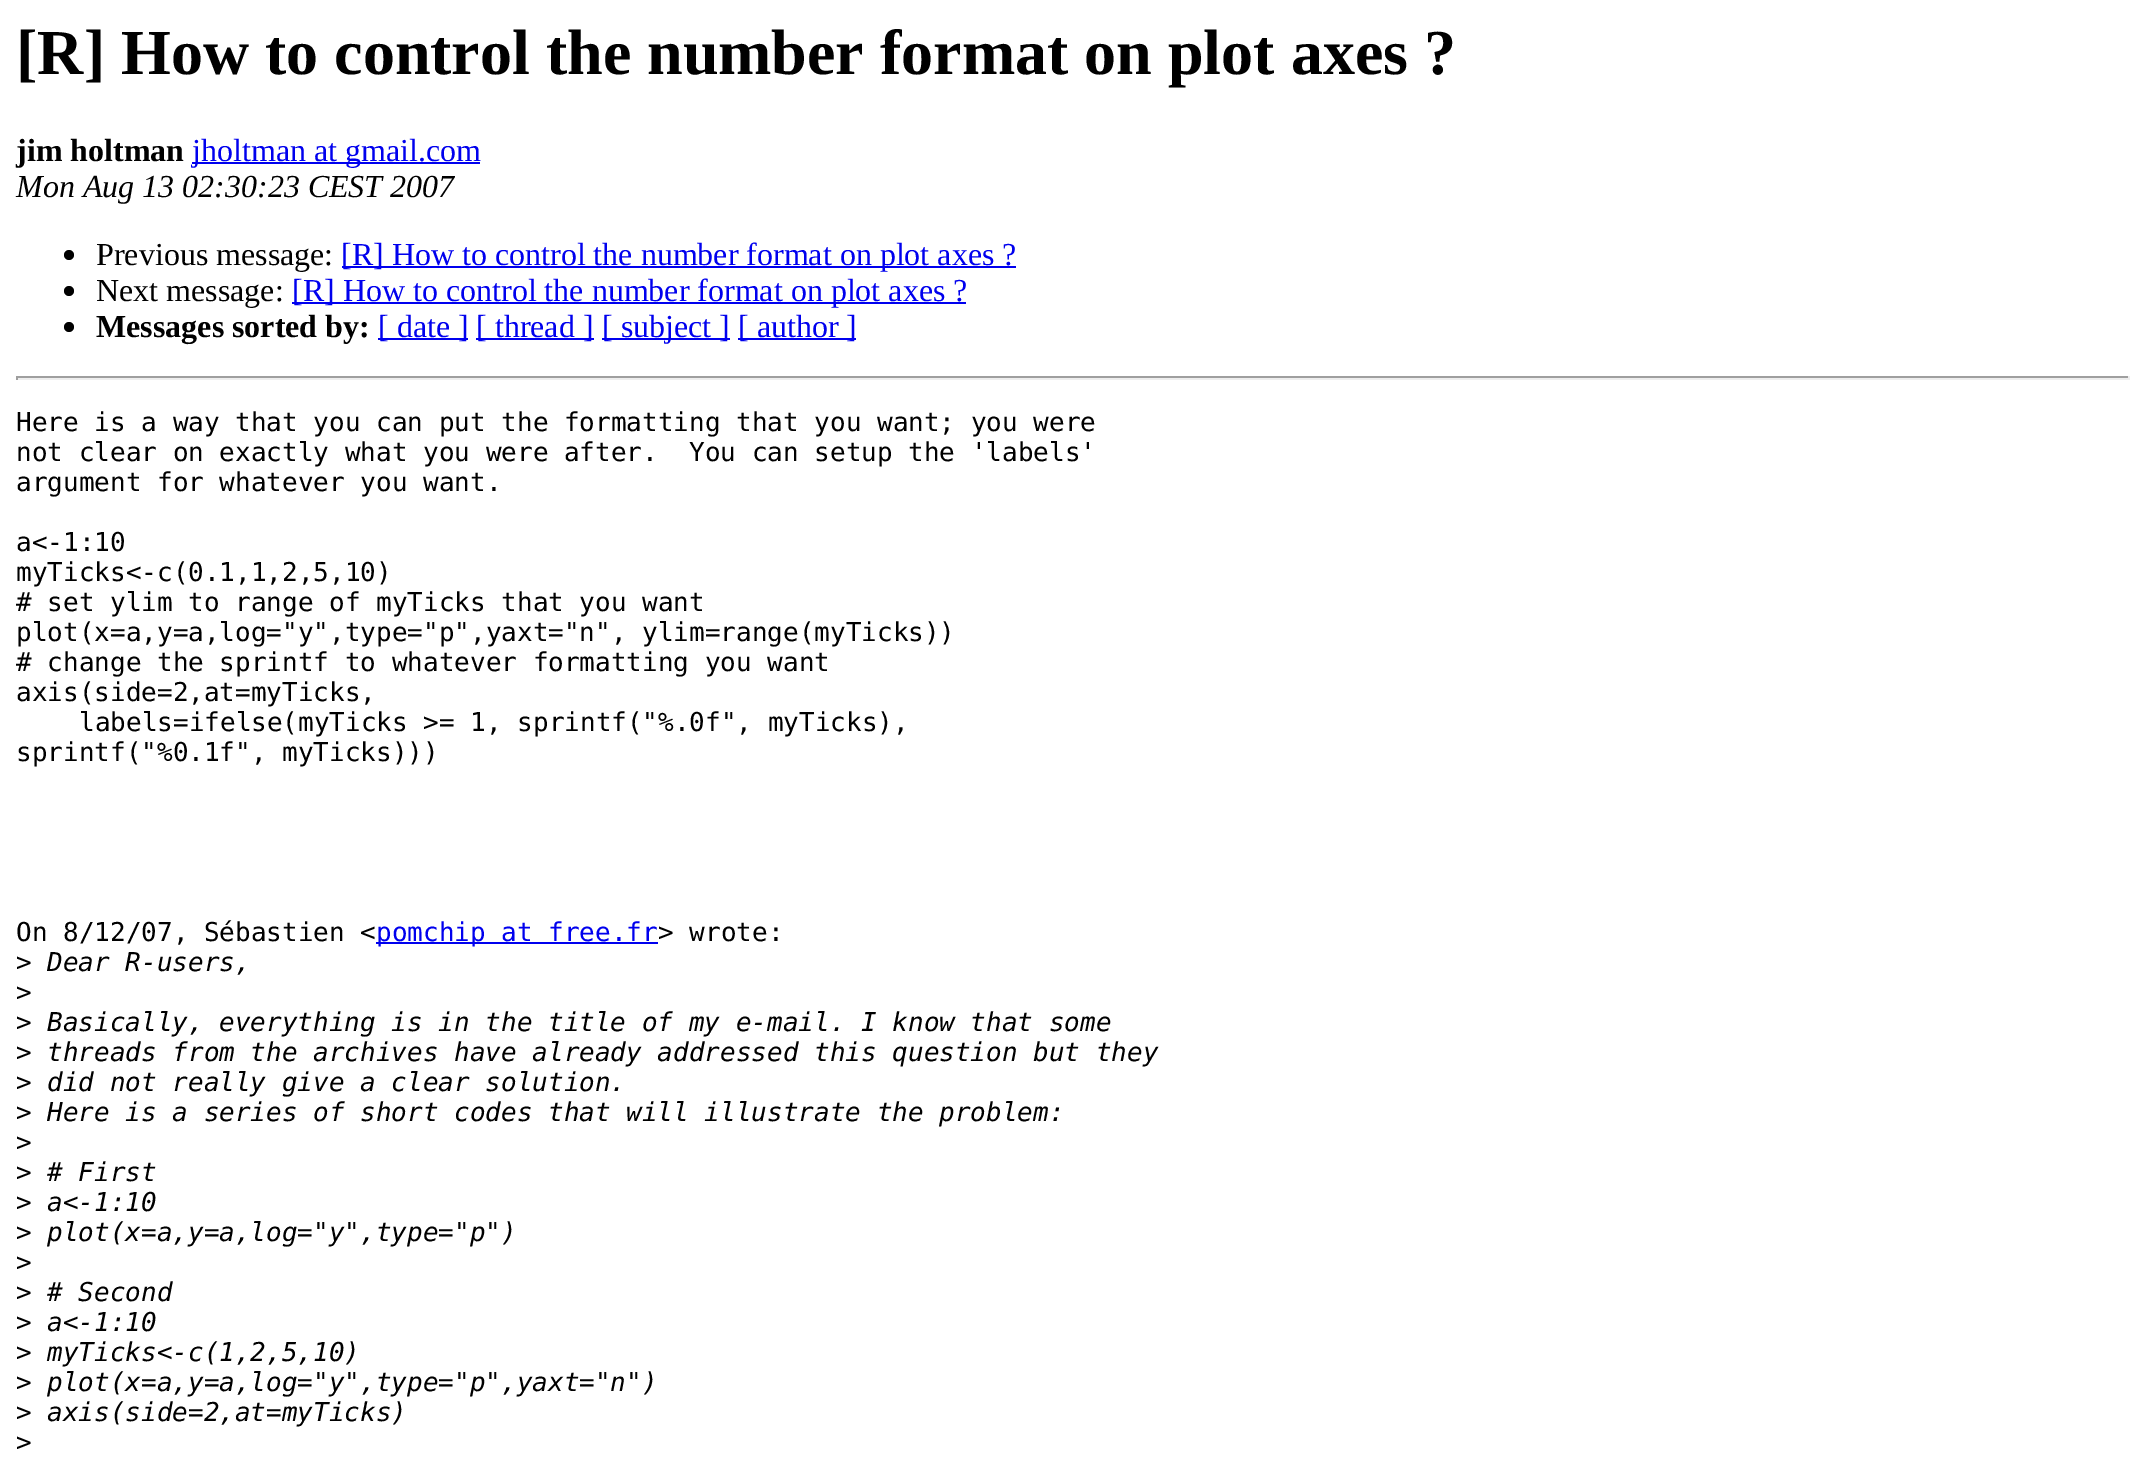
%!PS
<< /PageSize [2146 1465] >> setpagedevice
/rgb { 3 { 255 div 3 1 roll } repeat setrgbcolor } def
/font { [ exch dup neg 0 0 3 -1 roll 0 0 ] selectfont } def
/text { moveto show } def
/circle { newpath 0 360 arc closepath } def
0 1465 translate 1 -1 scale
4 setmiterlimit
255 255 255 rgb
0 0 2146 1465 rectfill
0 0 238 rgb
192 162 288 2 rectfill
0 0 0 rgb
69 255 5 circle fill
0 0 238 rgb
342 266 674 2 rectfill
0 0 0 rgb
69 291 5 circle fill
0 0 238 rgb
292 302 674 2 rectfill
0 0 0 rgb
69 327 5 circle fill
0 0 238 rgb
378 338 90 2 rectfill
476 338 118 2 rectfill
602 338 128 2 rectfill
738 338 118 2 rectfill
159 159 159 rgb
16 376 2114 2 rectfill
238 238 238 rgb
2128 376 2 4 rectfill
16 378 2114 2 rectfill
159 159 159 rgb
16 376 2 4 rectfill
0 0 238 rgb
376 942 282 2 rectfill
/LiberationSerif-Bold 64 font
0 0 0 rgb
([R] How to control the number format on plot axes ?) 16 74 text
/LiberationSerif-Bold 32 font
(jim holtman) 16 161 text
/LiberationSerif-Regular 32 font
0 0 238 rgb
(jholtman at gmail.com) 192 161 text
/LiberationSerif-Italic 32 font
0 0 0 rgb
(Mon Aug 13 02:30:23 CEST 2007) 16 197 text
/LiberationSerif-Regular 32 font
(Previous message:) 96 265 text
0 0 238 rgb
([R] How to control the number format on plot axes ?) 341 265 text
0 0 0 rgb
(Next message:) 96 301 text
0 0 238 rgb
([R] How to control the number format on plot axes ?) 292 301 text
/LiberationSerif-Bold 32 font
0 0 0 rgb
(Messages sorted by:) 96 337 text
/LiberationSerif-Regular 32 font
0 0 238 rgb
([ date ]) 378 337 text
([ thread ]) 476 337 text
([ subject ]) 602 337 text
([ author ]) 738 337 text
/DejaVuSansMono-Regular 26 font
0 0 0 rgb
(Here is a way that you can put the formatting that you want; you were) 16 431 text
(not clear on exactly what you were after.  You can setup the 'labels') 16 461 text
(argument for whatever you want.) 16 491 text
(a<-1:10) 16 551 text
(myTicks<-c\(0.1,1,2,5,10\)) 16 581 text
(# set ylim to range of myTicks that you want) 16 611 text
(plot\(x=a,y=a,log="y",type="p",yaxt="n", ylim=range\(myTicks\)\)) 16 641 text
(# change the sprintf to whatever formatting you want) 16 671 text
(axis\(side=2,at=myTicks,) 16 701 text
(labels=ifelse\(myTicks >= 1, sprintf\("%.0f", myTicks\),) 79 731 text
(sprintf\("%0.1f", myTicks\)\)\)) 16 761 text
(On 8/12/07, Sébastien <) 16 941 text
0 0 238 rgb
(pomchip at free.fr) 376 941 text
0 0 0 rgb
(> wrote:) 658 941 text
(>) 16 971 text
/DejaVuSansMono-Italic 26 font
(Dear R-users,) 47 971 text
/DejaVuSansMono-Regular 26 font
(>) 16 1001 text
(>) 16 1031 text
/DejaVuSansMono-Italic 26 font
(Basically, everything is in the title of my e-mail. I know that some) 47 1031 text
/DejaVuSansMono-Regular 26 font
(>) 16 1061 text
/DejaVuSansMono-Italic 26 font
(threads from the archives have already addressed this question but they) 47 1061 text
/DejaVuSansMono-Regular 26 font
(>) 16 1091 text
/DejaVuSansMono-Italic 26 font
(did not really give a clear solution.) 47 1091 text
/DejaVuSansMono-Regular 26 font
(>) 16 1121 text
/DejaVuSansMono-Italic 26 font
(Here is a series of short codes that will illustrate the problem:) 47 1121 text
/DejaVuSansMono-Regular 26 font
(>) 16 1151 text
(>) 16 1181 text
/DejaVuSansMono-Italic 26 font
(# First) 47 1181 text
/DejaVuSansMono-Regular 26 font
(>) 16 1211 text
/DejaVuSansMono-Italic 26 font
(a<-1:10) 47 1211 text
/DejaVuSansMono-Regular 26 font
(>) 16 1241 text
/DejaVuSansMono-Italic 26 font
(plot\(x=a,y=a,log="y",type="p"\)) 47 1241 text
/DejaVuSansMono-Regular 26 font
(>) 16 1271 text
(>) 16 1301 text
/DejaVuSansMono-Italic 26 font
(# Second) 47 1301 text
/DejaVuSansMono-Regular 26 font
(>) 16 1331 text
/DejaVuSansMono-Italic 26 font
(a<-1:10) 47 1331 text
/DejaVuSansMono-Regular 26 font
(>) 16 1361 text
/DejaVuSansMono-Italic 26 font
(myTicks<-c\(1,2,5,10\)) 47 1361 text
/DejaVuSansMono-Regular 26 font
(>) 16 1391 text
/DejaVuSansMono-Italic 26 font
(plot\(x=a,y=a,log="y",type="p",yaxt="n"\)) 47 1391 text
/DejaVuSansMono-Regular 26 font
(>) 16 1421 text
/DejaVuSansMono-Italic 26 font
(axis\(side=2,at=myTicks\)) 47 1421 text
/DejaVuSansMono-Regular 26 font
(>) 16 1451 text
showpage
